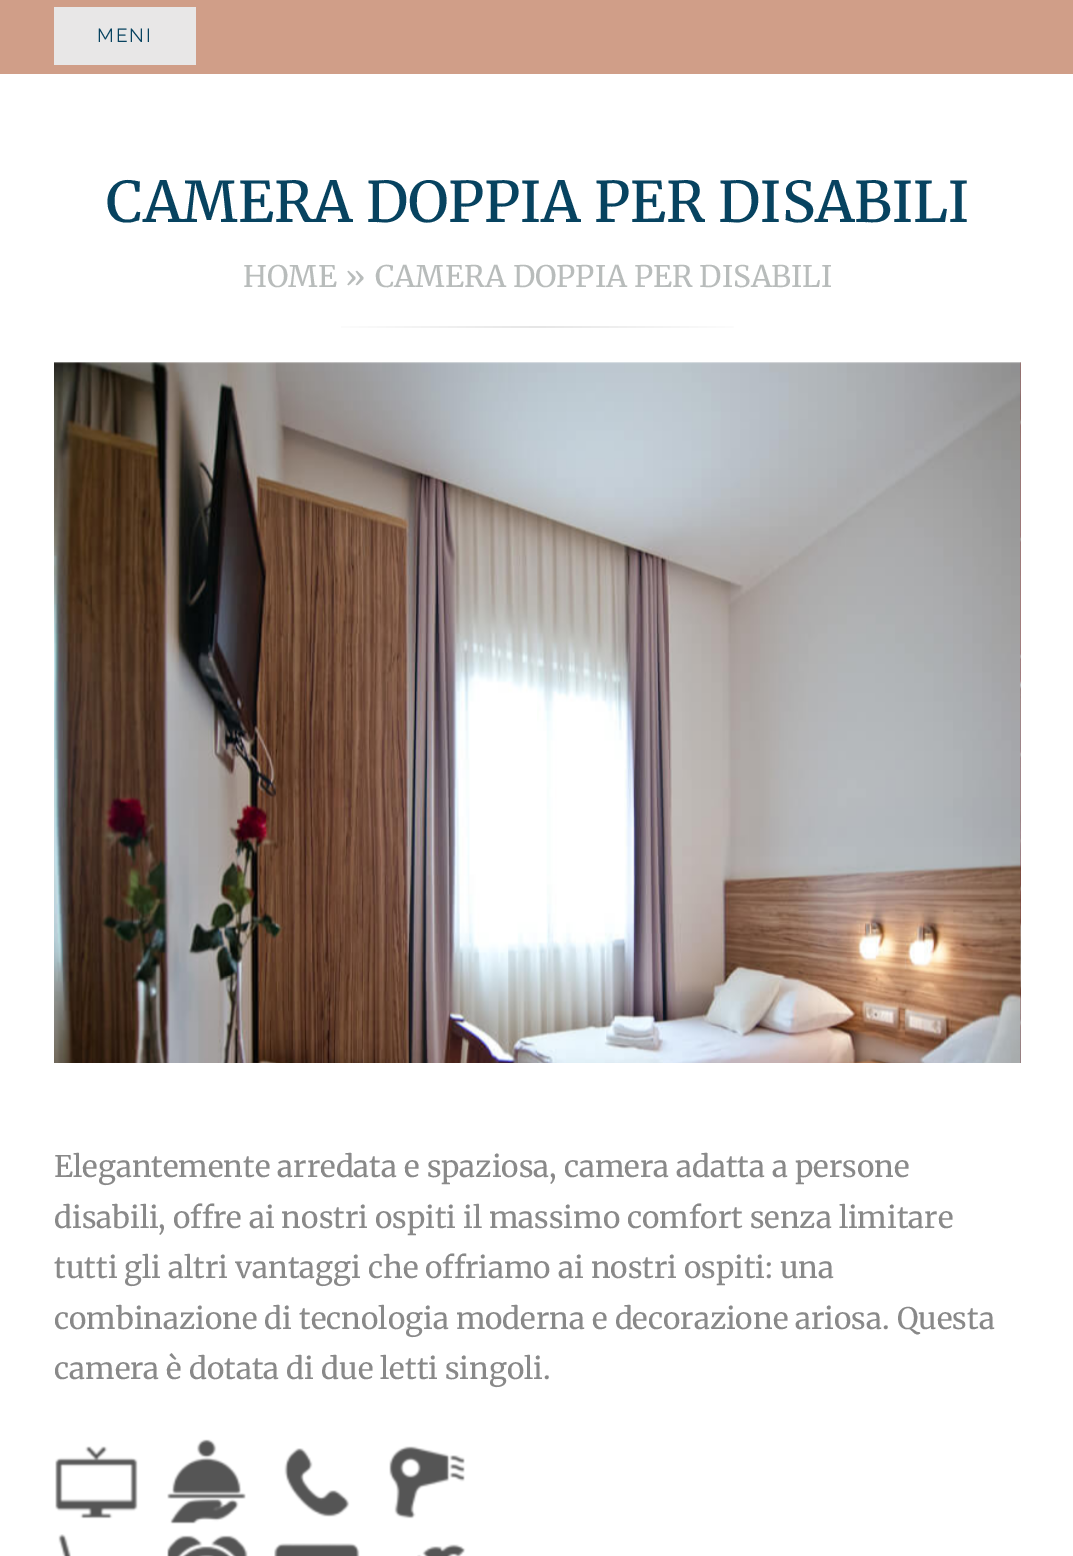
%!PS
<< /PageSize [1073 1556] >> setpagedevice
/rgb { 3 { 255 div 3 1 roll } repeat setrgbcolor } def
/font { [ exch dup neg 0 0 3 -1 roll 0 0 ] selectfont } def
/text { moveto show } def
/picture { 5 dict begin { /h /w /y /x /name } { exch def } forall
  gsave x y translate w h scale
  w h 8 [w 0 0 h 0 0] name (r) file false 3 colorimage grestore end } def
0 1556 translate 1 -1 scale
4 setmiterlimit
255 255 255 rgb
0 0 1073 1556 rectfill
208 158 136 rgb
0 0 1073 74 rectfill
232 231 231 rgb
54 7 142 58 rectfill
gsave 341 326 moveto 393 0 rlineto 0 2 rlineto -393 0 rlineto closepath clip newpath
<< /ShadingType 2 /ColorSpace /DeviceRGB /Coords [319 326 756 326] /Extend [true true] /Function << /FunctionType 3 /Domain [0 1] /Functions [<< /FunctionType 2 /Domain [0 1] /C0 [1 1 1] /C1 [0.902 0.902 0.902] /N 1 >> << /FunctionType 2 /Domain [0 1] /C0 [0.902 0.902 0.902] /C1 [1 1 1] /N 1 >>] /Bounds [0.5] /Encode [0 1 0 1] >> >> shfill grestore
(img_01.rgb) 54 362 967 701 picture
(img_02.rgb) 1020 362 1 701 picture
(img_03.rgb) 55 1446 83 73 picture
(img_04.rgb) 167 1439 79 85 picture
(img_05.rgb) 284 1448 66 69 picture
(img_06.rgb) 389 1446 76 73 picture
(img_07.rgb) 58 1534 13 22 picture
(img_08.rgb) 167 1535 81 21 picture
(img_09.rgb) 274 1543 86 13 picture
(img_10.rgb) 417 1544 49 12 picture
/Raleway-Thin 19 font
7 67 96 rgb
97 42 moveto 2 0 (MENI) ashow
/Merriweather-Medium 56 font
(CAMERA DOPPIA PER DISABILI) 106 222 text
/Merriweather-Regular 29.75 font
184 188 187 rgb
(HOME) 243 287 text
(») 345 287 text
(CAMERA DOPPIA PER DISABILI) 375 287 text
137 137 137 rgb
(Elegantemente arredata e spaziosa, camera adatta a persone) 54 1177 text
(disabili, offre ai nostri ospiti il massimo comfort senza limitare) 54 1228 text
(tutti gli altri vantaggi che offriamo ai nostri ospiti: una) 54 1278 text
(combinazione di tecnologia moderna e decorazione ariosa. Questa) 54 1329 text
(camera è dotata di due letti singoli.) 54 1379 text
showpage
